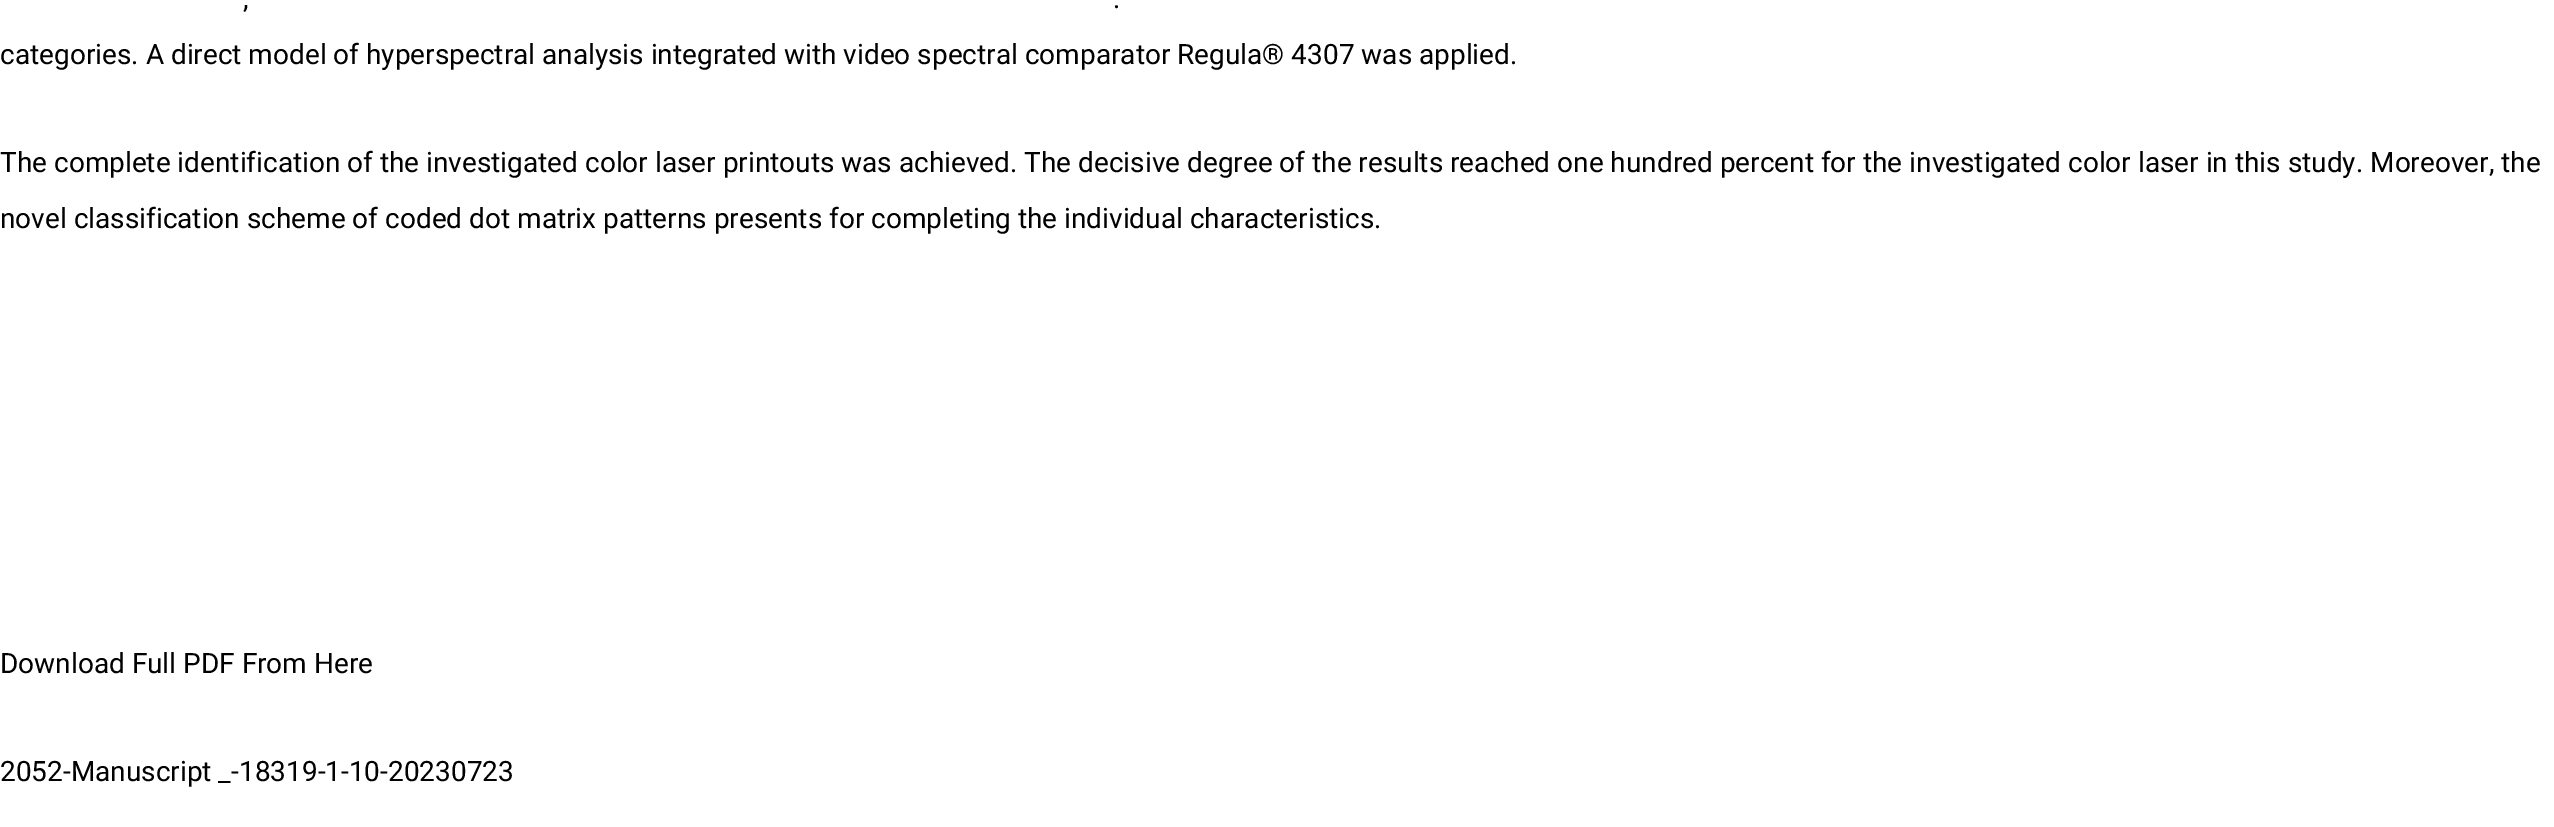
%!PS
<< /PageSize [2554 827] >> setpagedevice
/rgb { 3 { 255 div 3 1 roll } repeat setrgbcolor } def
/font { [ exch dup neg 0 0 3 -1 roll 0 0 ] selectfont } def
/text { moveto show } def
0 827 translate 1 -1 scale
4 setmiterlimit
255 255 255 rgb
0 0 2554 827 rectfill
/Roboto-Regular 28 font
0 0 0 rgb
(,) 243 8 text
(.) 1113 8 text
(categories. A direct model of hyperspectral analysis integrated with video spectral comparator Regula® 4307 was applied.) 0 64 text
(The complete identification of the investigated color laser printouts was achieved. The decisive degree of the results reached one hundred percent for the investigated color laser in this study. Moreover, the) 0 172 text
(novel classification scheme of coded dot matrix patterns presents for completing the individual characteristics.) 0 228 text
(Download Full PDF From Here) 0 673 text
(2052-Manuscript _-18319-1-10-20230723) 0 781 text
showpage
